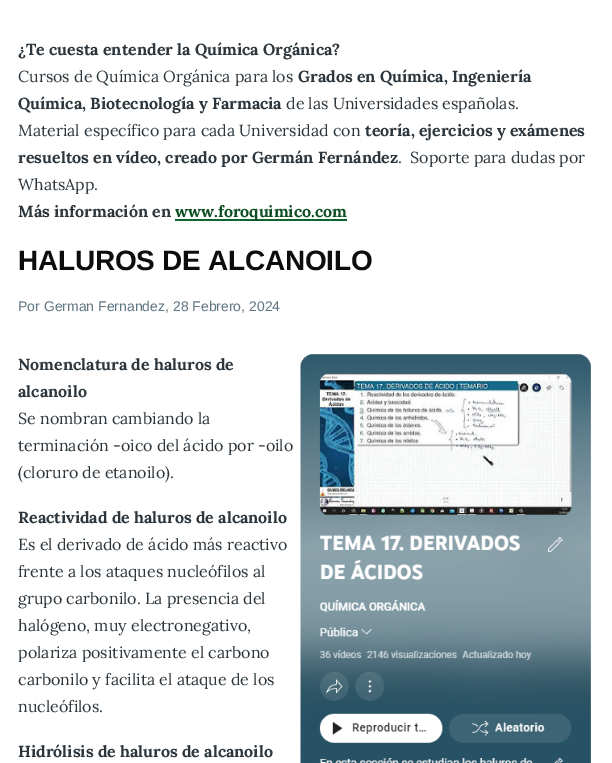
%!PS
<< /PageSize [612 763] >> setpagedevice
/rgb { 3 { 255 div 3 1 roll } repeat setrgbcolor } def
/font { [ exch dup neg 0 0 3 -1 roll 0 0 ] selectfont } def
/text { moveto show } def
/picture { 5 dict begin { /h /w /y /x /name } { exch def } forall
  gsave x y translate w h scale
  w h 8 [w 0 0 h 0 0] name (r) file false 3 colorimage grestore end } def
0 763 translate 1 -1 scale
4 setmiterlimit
255 255 255 rgb
0 0 612 763 rectfill
15 102 44 rgb
175 219 172 2 rectfill
(img_01.rgb) 300 354 291 409 picture
/Lora-Bold 16 font
43 53 59 rgb
(¿Te cuesta entender la Química Orgánica?) 18 55 text
/Lora-Regular 16 font
(Cursos de Química Orgánica para los) 18 82 text
/Lora-Bold 16 font
(Grados en Química, Ingeniería) 298 82 text
(Química, Biotecnología y Farmacia) 18 109 text
/Lora-Regular 16 font
(de las Universidades españolas.) 286 109 text
(Material específico para cada Universidad con) 18 136 text
/Lora-Bold 16 font
(teoría, ejercicios y exámenes) 365 136 text
(resueltos en vídeo, creado por Germán Fernández) 18 163 text
/Lora-Regular 16 font
(.  Soporte para dudas por) 398 163 text
(WhatsApp.) 18 190 text
/Lora-Bold 16 font
(Más información en) 18 217 text
12 78 34 rgb
(www.foroquimico.com) 175 217 text
/LiberationSans-Bold 28 font
11 13 15 rgb
18 270 moveto -0.25 0 (HALUROS DE ALCANOILO) ashow
/LiberationSans-Regular 14 font
95 117 129 rgb
(Por German Fernandez, 28 Febrero, 2024) 18 311 text
/Lora-Bold 16 font
43 53 59 rgb
(Nomenclatura de haluros de) 18 370 text
(alcanoilo) 18 397 text
/Lora-Regular 16 font
(Se nombran cambiando la) 18 424 text
(terminación -oico del ácido por -oilo) 18 451 text
(\(cloruro de etanoilo\).) 18 478 text
/Lora-Bold 16 font
(Reactividad de haluros de alcanoilo) 18 523 text
/Lora-Regular 16 font
(Es el derivado de ácido más reactivo) 18 550 text
(frente a los ataques nucleófilos al) 18 577 text
(grupo carbonilo. La presencia del) 18 604 text
(halógeno, muy electronegativo,) 18 631 text
(polariza positivamente el carbono) 18 658 text
(carbonilo y facilita el ataque de los) 18 685 text
(nucleófilos.) 18 712 text
/Lora-Bold 16 font
(Hidrólisis de haluros de alcanoilo) 18 757 text
showpage
